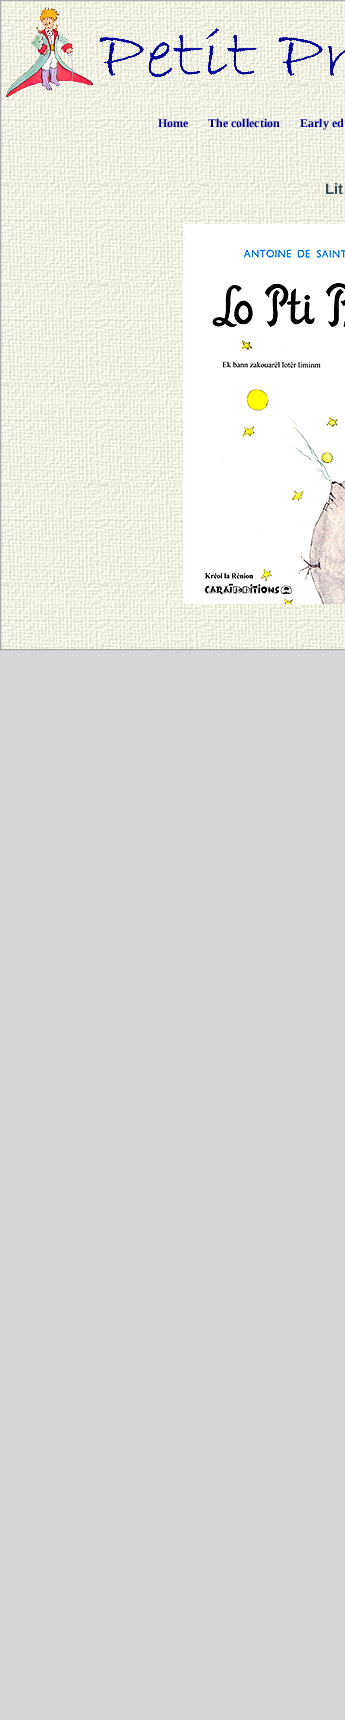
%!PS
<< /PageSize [345 1720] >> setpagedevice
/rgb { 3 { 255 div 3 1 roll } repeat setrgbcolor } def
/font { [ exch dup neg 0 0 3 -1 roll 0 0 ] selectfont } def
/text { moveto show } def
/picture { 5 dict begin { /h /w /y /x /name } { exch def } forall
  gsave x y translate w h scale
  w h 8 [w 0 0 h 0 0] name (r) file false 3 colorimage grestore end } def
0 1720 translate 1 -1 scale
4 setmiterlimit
214 214 214 rgb
0 0 345 1720 rectfill
(img_01.rgb) 1 1 344 648 picture
170 170 170 rgb
0.5 0.5 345 649 rectstroke
(img_02.rgb) 6 7 339 90 picture
(img_03.rgb) 183 224 162 380 picture
/LiberationSerif-Bold 12 font
0 0 153 rgb
(Home) 158 127 text
(The collection) 208 127 text
(Early ed) 300 127 text
/LiberationSans-Bold 15 font
51 77 85 rgb
(Lit) 325 194 text
showpage
